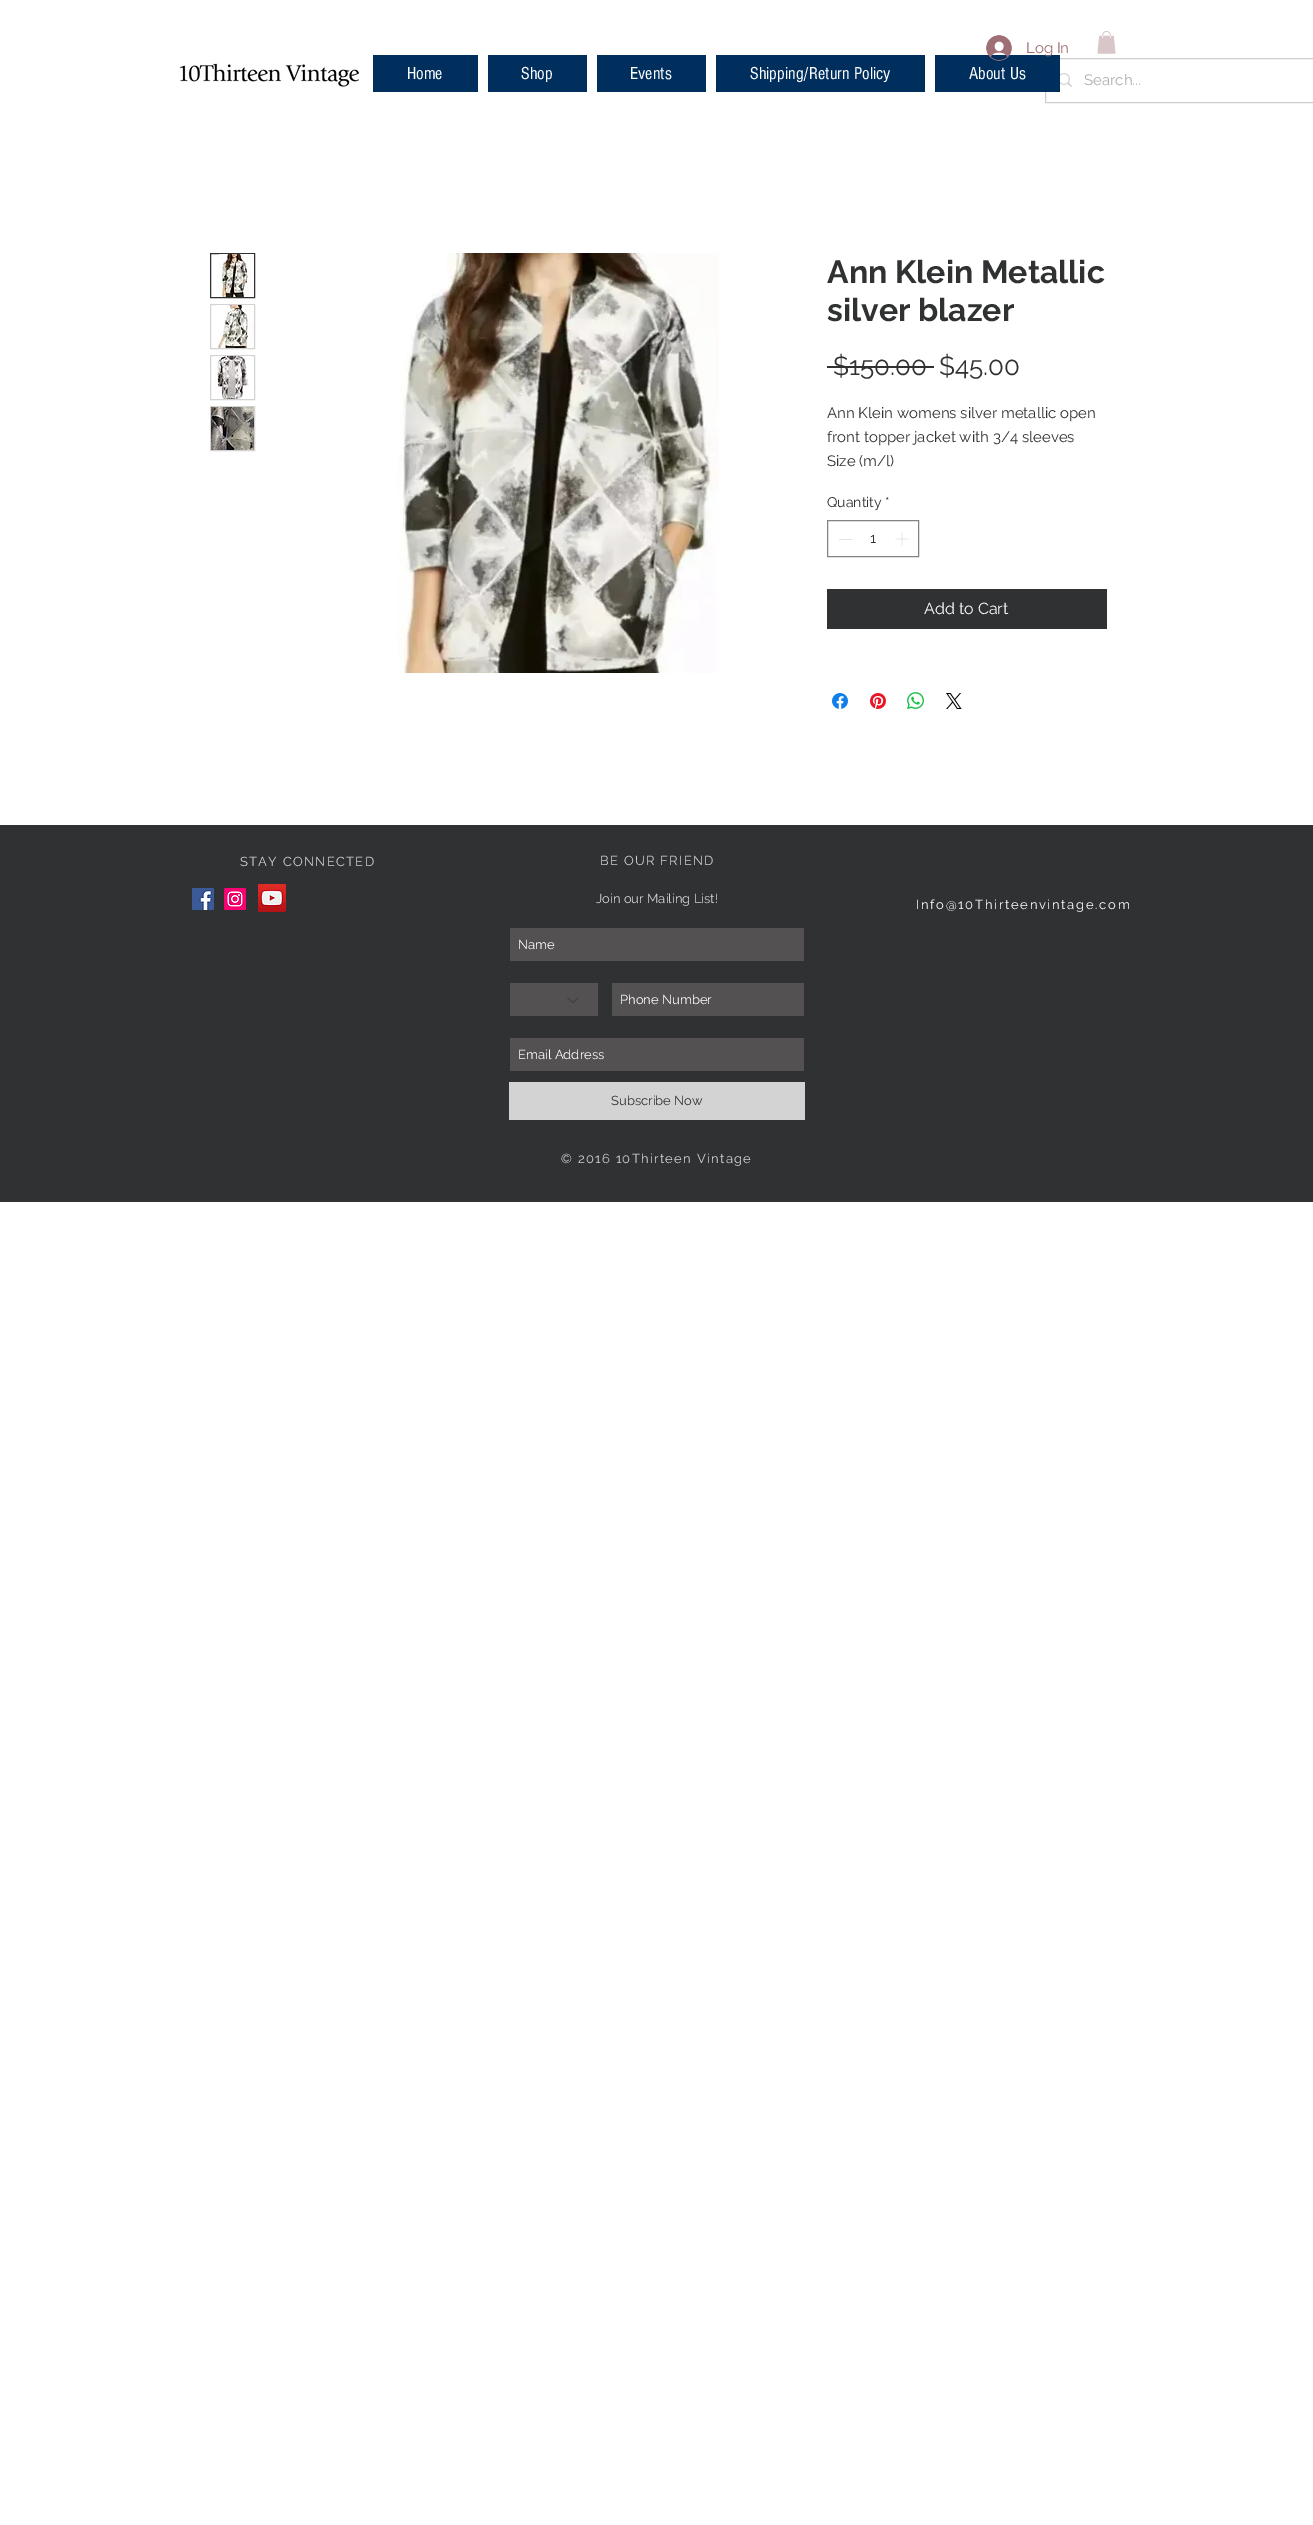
%!PS
<< /PageSize [1313 2525] >> setpagedevice
/rgb { 3 { 255 div 3 1 roll } repeat setrgbcolor } def
/font { [ exch dup neg 0 0 3 -1 roll 0 0 ] selectfont } def
/text { moveto show } def
/picture { 5 dict begin { /h /w /y /x /name } { exch def } forall
  gsave x y translate w h scale
  w h 8 [w 0 0 h 0 0] name (r) file false 3 colorimage grestore end } def
0 2525 translate 1 -1 scale
4 setmiterlimit
255 255 255 rgb
0 0 1313 2525 rectfill
205 205 206 rgb
1045.5 58.5 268 44 rectstroke
0 46 93 rgb
935 55 125 37 rectfill
(img_01.rgb) 986 35 26 26 picture
(img_02.rgb) 179 63 180 24 picture
373 55 105 37 rectfill
488 55 99 37 rectfill
597 55 109 37 rectfill
716 55 209 37 rectfill
(img_03.rgb) 1097 31 19 23 picture
(img_04.rgb) 1060 73 12 14 picture
48 49 50 rgb
210.5 253.5 44 44 rectstroke
(img_05.rgb) 219 254 35 43 picture
211 211 211 rgb
210.5 304.5 44 44 rectstroke
(img_06.rgb) 217 305 37 43 picture
210.5 355.5 44 44 rectstroke
(img_07.rgb) 215 356 36 43 picture
210.5 406.5 44 44 rectstroke
(img_08.rgb) 211 407 43 43 picture
(img_09.rgb) 397 253 322 420 picture
48 49 50 rgb
827 366 107 2 rectfill
131 131 132 rgb
827.5 520.5 91 36 rectstroke
227 227 227 rgb
839 539 13 1 rectfill
(img_10.rgb) 895 532 14 14 picture
48 49 50 rgb
827 589 280 40 rectfill
(img_11.rgb) 832 693 16 16 picture
(img_12.rgb) 870 693 16 16 picture
(img_13.rgb) 907 692 17 17 picture
(img_14.rgb) 946 693 16 16 picture
0 825 1313 377 rectfill
(img_15.rgb) 192 888 22 22 picture
(img_16.rgb) 224 888 22 22 picture
(img_17.rgb) 258 884 28 28 picture
83 81 81 rgb
510 928 294 33 rectfill
510 983 88 33 rectfill
(img_18.rgb) 567 997 11 6 picture
612 983 192 33 rectfill
510 1038 294 33 rectfill
211 211 211 rgb
509 1082 296 38 rectfill
/Raleway-Regular 15 font
158 112 118 rgb
(Log In) 1026 53 text
/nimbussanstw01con-Regular 18 font
255 255 255 rgb
(Home) 407 79 text
(Shop) 521 79 text
(Events) 630 79 text
(Shipping/Return Policy) 750 79 text
(About Us) 969 79 text
/Raleway-Regular 15 font
172 173 173 rgb
(Search...) 1084 85 text
/Raleway-Bold 32 font
48 49 50 rgb
(Ann Klein Metallic) 827 283 text
(silver blazer) 827 321 text
/Raleway-Regular 26 font
($150.00) 833 375 text
($45.00) 939 375 text
/Raleway-Regular 15 font
(Ann Klein womens silver metallic open) 827 418 text
(front topper jacket with 3/4 sleeves) 827 442 text
(Size \(m/l\)) 827 466 text
/Raleway-Regular 14 font
(Quantity) 827 507 text
(*) 885 507 text
(1) 870 543 text
/Raleway-Regular 16 font
255 255 255 rgb
(Add to Cart) 924 614 text
/Raleway-Regular 13 font
211 211 211 rgb
240 866 moveto 1.3 0 (STAY CONNECTED) ashow
600 865 moveto 1.3 0 (BE OUR FRIEND) ashow
(Join our Mailing List!) 596 903 text
255 255 255 rgb
(Name) 518 949 text
(Phone Number) 620 1004 text
(Email Address) 518 1059 text
48 49 50 rgb
(Subscribe Now) 611 1105 text
255 255 255 rgb
916 909 moveto 1.7 0 (Info@10Thirteenvintage.com) ashow
211 211 211 rgb
561 1163 moveto 1.3 0 (© 2016 10Thirteen Vintage) ashow
showpage
